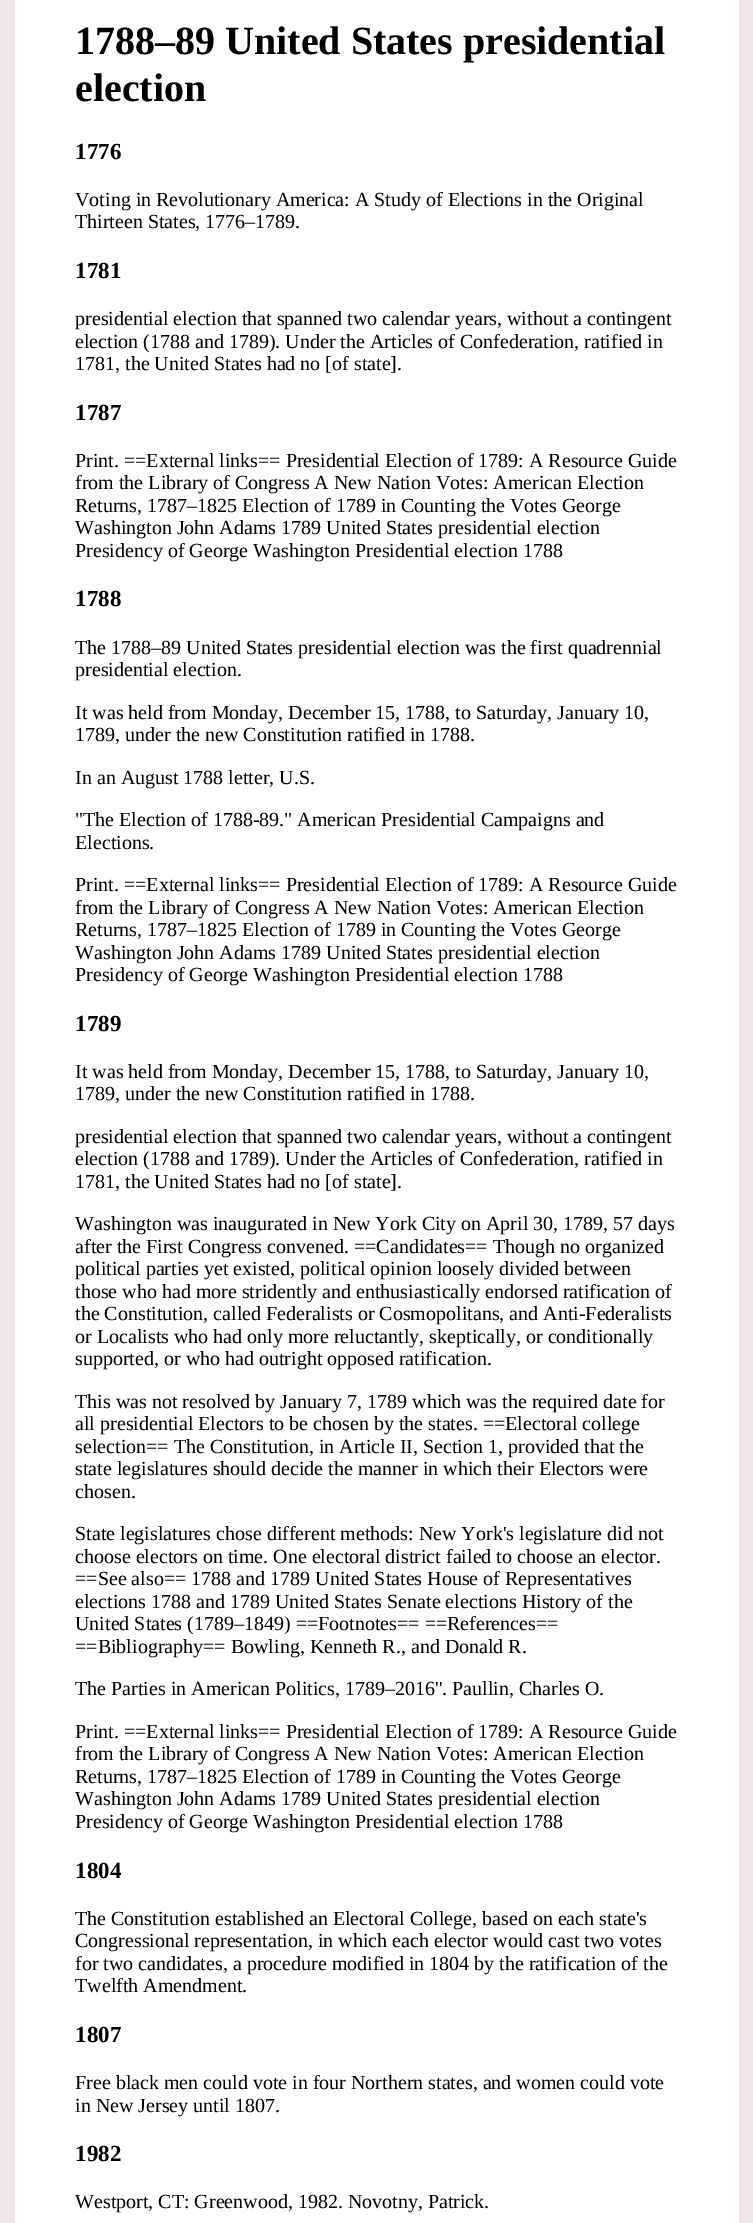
%!PS
<< /PageSize [753 2223] >> setpagedevice
/rgb { 3 { 255 div 3 1 roll } repeat setrgbcolor } def
/font { [ exch dup neg 0 0 3 -1 roll 0 0 ] selectfont } def
/text { moveto show } def
0 2223 translate 1 -1 scale
4 setmiterlimit
239 228 232 rgb
0 0 753 2223 rectfill
255 255 255 rgb
15 0 724 2223 rectfill
/LiberationSerif-Bold 40 font
0 0 0 rgb
(1788–89 United States presidential) 75 54 text
(election) 75 101 text
/LiberationSerif-Bold 23 font
(1776) 75 159 text
/LiberationSerif-Regular 20 font
(Voting in Revolutionary America: A Study of Elections in the Original) 75 206 text
(Thirteen States, 1776–1789.) 75 228 text
/LiberationSerif-Bold 23 font
(1781) 75 278 text
/LiberationSerif-Regular 20 font
(presidential election that spanned two calendar years, without a contingent) 75 325 text
(election \(1788 and 1789\). Under the Articles of Confederation, ratified in) 75 348 text
(1781, the United States had no [of state].) 75 370 text
/LiberationSerif-Bold 23 font
(1787) 75 420 text
/LiberationSerif-Regular 20 font
(Print. ==External links== Presidential Election of 1789: A Resource Guide) 75 467 text
(from the Library of Congress A New Nation Votes: American Election) 75 489 text
(Returns, 1787–1825 Election of 1789 in Counting the Votes George) 75 512 text
(Washington John Adams 1789 United States presidential election) 75 534 text
(Presidency of George Washington Presidential election 1788) 75 557 text
/LiberationSerif-Bold 23 font
(1788) 75 606 text
/LiberationSerif-Regular 20 font
(The 1788–89 United States presidential election was the first quadrennial) 75 654 text
(presidential election.) 75 676 text
(It was held from Monday, December 15, 1788, to Saturday, January 10,) 75 719 text
(1789, under the new Constitution ratified in 1788.) 75 741 text
(In an August 1788 letter, U.S.) 75 784 text
("The Election of 1788-89." American Presidential Campaigns and) 75 826 text
(Elections.) 75 849 text
(Print. ==External links== Presidential Election of 1789: A Resource Guide) 75 891 text
(from the Library of Congress A New Nation Votes: American Election) 75 914 text
(Returns, 1787–1825 Election of 1789 in Counting the Votes George) 75 936 text
(Washington John Adams 1789 United States presidential election) 75 959 text
(Presidency of George Washington Presidential election 1788) 75 981 text
/LiberationSerif-Bold 23 font
(1789) 75 1031 text
/LiberationSerif-Regular 20 font
(It was held from Monday, December 15, 1788, to Saturday, January 10,) 75 1078 text
(1789, under the new Constitution ratified in 1788.) 75 1100 text
(presidential election that spanned two calendar years, without a contingent) 75 1143 text
(election \(1788 and 1789\). Under the Articles of Confederation, ratified in) 75 1165 text
(1781, the United States had no [of state].) 75 1188 text
(Washington was inaugurated in New York City on April 30, 1789, 57 days) 75 1230 text
(after the First Congress convened. ==Candidates== Though no organized) 75 1253 text
(political parties yet existed, political opinion loosely divided between) 75 1275 text
(those who had more stridently and enthusiastically endorsed ratification of) 75 1298 text
(the Constitution, called Federalists or Cosmopolitans, and Anti-Federalists) 75 1320 text
(or Localists who had only more reluctantly, skeptically, or conditionally) 75 1343 text
(supported, or who had outright opposed ratification.) 75 1365 text
(This was not resolved by January 7, 1789 which was the required date for) 75 1408 text
(all presidential Electors to be chosen by the states. ==Electoral college) 75 1430 text
(selection== The Constitution, in Article II, Section 1, provided that the) 75 1453 text
(state legislatures should decide the manner in which their Electors were) 75 1475 text
(chosen.) 75 1498 text
(State legislatures chose different methods: New York's legislature did not) 75 1540 text
(choose electors on time. One electoral district failed to choose an elector.) 75 1563 text
(==See also== 1788 and 1789 United States House of Representatives) 75 1585 text
(elections 1788 and 1789 United States Senate elections History of the) 75 1608 text
(United States \(1789–1849\) ==Footnotes== ==References==) 75 1630 text
(==Bibliography== Bowling, Kenneth R., and Donald R.) 75 1653 text
(The Parties in American Politics, 1789–2016''. Paullin, Charles O.) 75 1695 text
(Print. ==External links== Presidential Election of 1789: A Resource Guide) 75 1738 text
(from the Library of Congress A New Nation Votes: American Election) 75 1760 text
(Returns, 1787–1825 Election of 1789 in Counting the Votes George) 75 1783 text
(Washington John Adams 1789 United States presidential election) 75 1805 text
(Presidency of George Washington Presidential election 1788) 75 1828 text
/LiberationSerif-Bold 23 font
(1804) 75 1878 text
/LiberationSerif-Regular 20 font
(The Constitution established an Electoral College, based on each state's) 75 1925 text
(Congressional representation, in which each elector would cast two votes) 75 1947 text
(for two candidates, a procedure modified in 1804 by the ratification of the) 75 1970 text
(Twelfth Amendment.) 75 1992 text
/LiberationSerif-Bold 23 font
(1807) 75 2042 text
/LiberationSerif-Regular 20 font
(Free black men could vote in four Northern states, and women could vote) 75 2089 text
(in New Jersey until 1807.) 75 2112 text
/LiberationSerif-Bold 23 font
(1982) 75 2161 text
/LiberationSerif-Regular 20 font
(Westport, CT: Greenwood, 1982. Novotny, Patrick.) 75 2208 text
showpage
